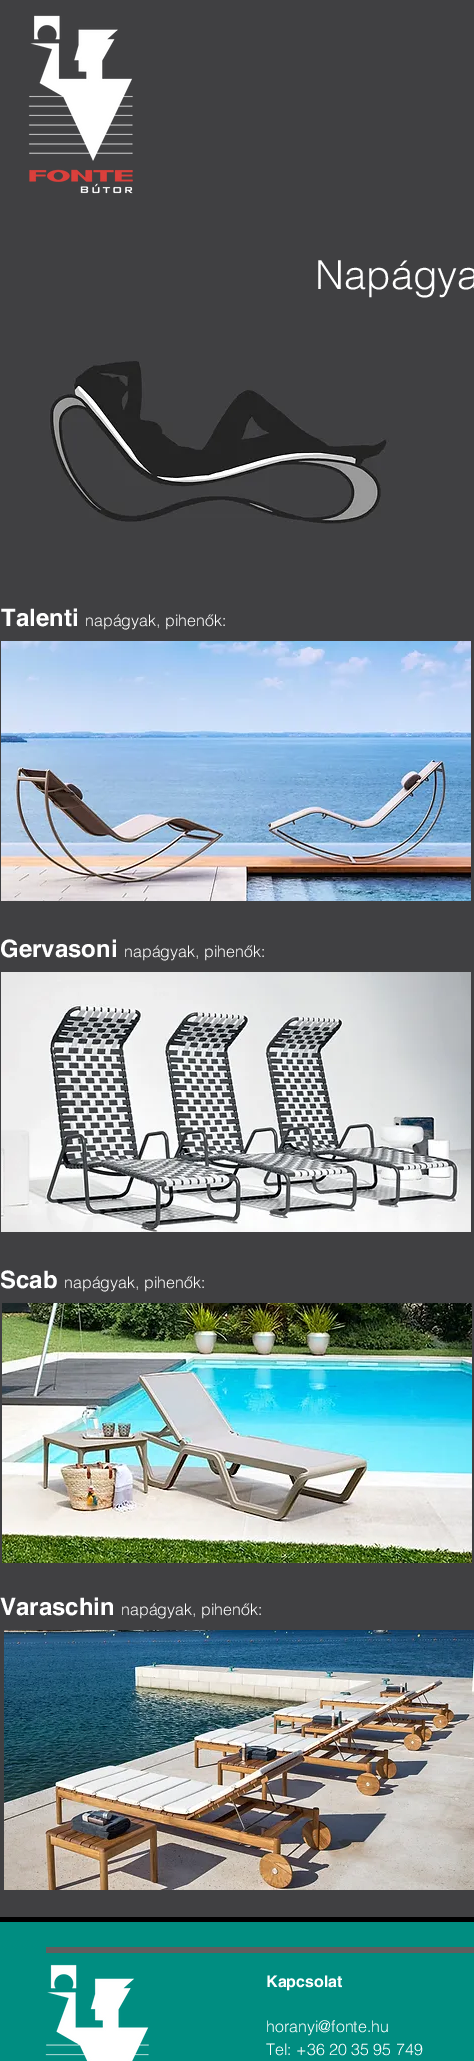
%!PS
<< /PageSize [474 2061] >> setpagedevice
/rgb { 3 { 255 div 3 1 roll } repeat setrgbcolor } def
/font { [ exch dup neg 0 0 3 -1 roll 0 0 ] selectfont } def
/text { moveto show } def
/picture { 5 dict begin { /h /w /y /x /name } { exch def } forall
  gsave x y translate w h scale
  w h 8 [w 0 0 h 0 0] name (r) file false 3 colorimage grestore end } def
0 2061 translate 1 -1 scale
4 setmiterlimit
64 64 66 rgb
0 0 474 2061 rectfill
(img_01.rgb) 28 15 105 179 picture
(img_02.rgb) 49 361 340 163 picture
(img_03.rgb) 1 641 470 260 picture
(img_04.rgb) 1 972 470 260 picture
(img_05.rgb) 2 1303 470 260 picture
(img_06.rgb) 4 1630 470 260 picture
0 141 129 rgb
0 1922 474 139 rectfill
0 0 0 rgb
0 1917 474 5 rectfill
96 94 94 rgb
46 1947 428 6 rectfill
(img_07.rgb) 45 1964 104 97 picture
/helvetica-Light 40 font
255 255 255 rgb
(Napágya) 315 289 text
/helvetica-Bold 24 font
(Talenti) 1 626 text
/helvetica-Light 16 font
(napágyak, pihenők:) 85 626 text
/helvetica-Bold 24 font
(Gervasoni) 0 957 text
/helvetica-Light 16 font
(napágyak, pihenők:) 124 957 text
/helvetica-Bold 24 font
(Scab) 0 1288 text
/helvetica-Light 16 font
(napágyak, pihenők:) 64 1288 text
/helvetica-Bold 24 font
(Varaschin) 0 1615 text
/helvetica-Light 16 font
(napágyak, pihenők:) 121 1615 text
/helvetica-Bold 16 font
(Kapcsolat) 266 1987 text
/helvetica-Light 16 font
(horanyi@fonte.hu) 266 2032 text
(Tel: +36 20 35 95 749) 266 2055 text
showpage
